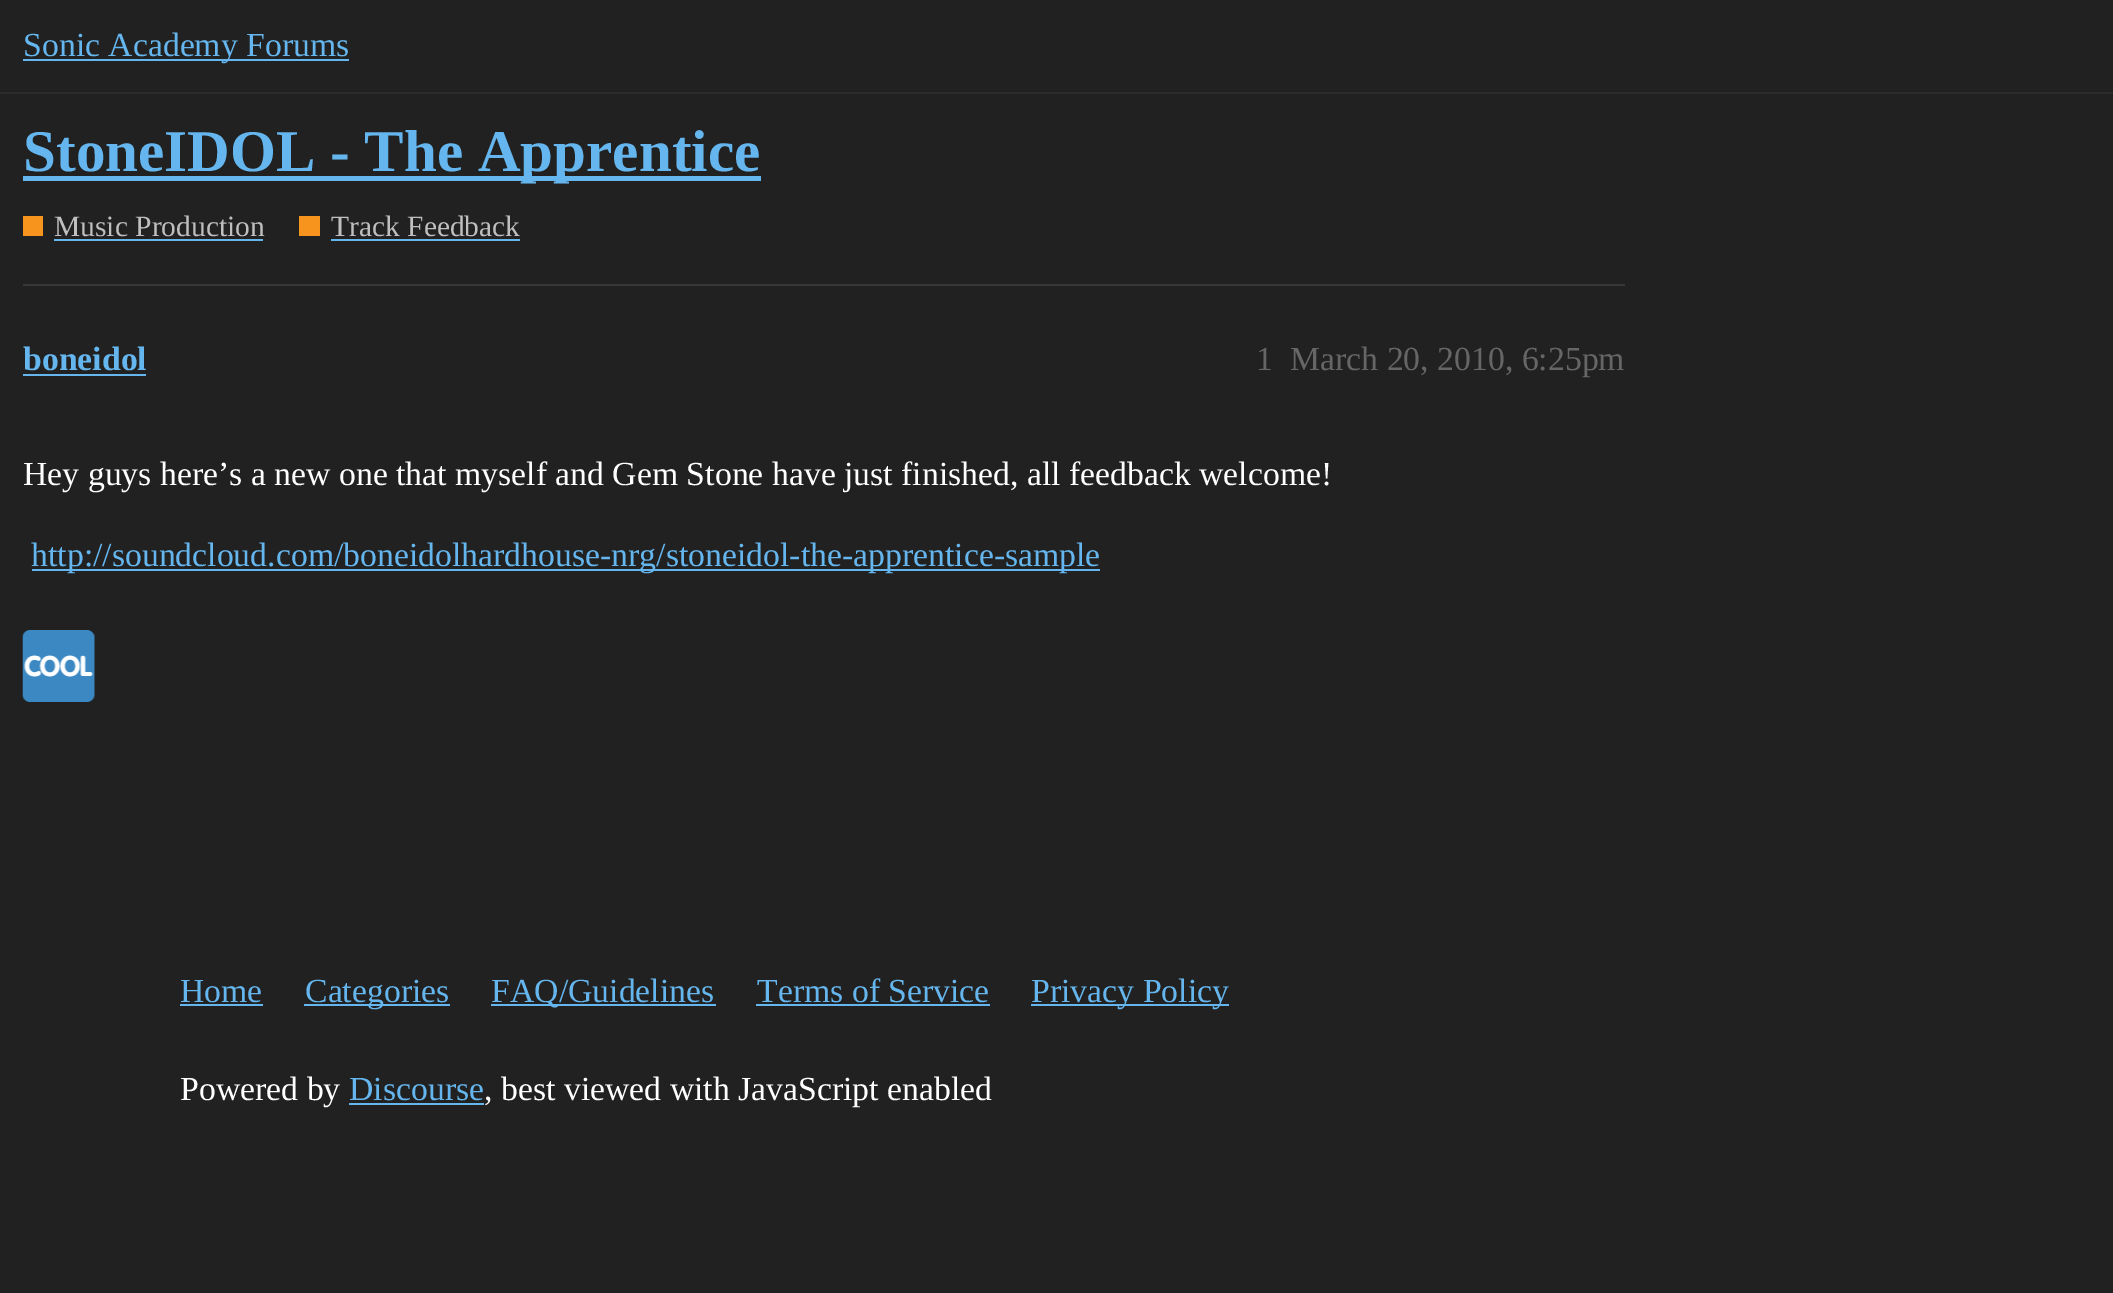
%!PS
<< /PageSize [2113 1293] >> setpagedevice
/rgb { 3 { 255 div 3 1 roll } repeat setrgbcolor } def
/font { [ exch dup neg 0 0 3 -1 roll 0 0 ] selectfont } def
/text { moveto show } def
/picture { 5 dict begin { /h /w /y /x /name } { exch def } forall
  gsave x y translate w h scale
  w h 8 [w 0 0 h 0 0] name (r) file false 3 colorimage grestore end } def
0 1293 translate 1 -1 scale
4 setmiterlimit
33 33 33 rgb
0 0 2113 1293 rectfill
44 44 44 rgb
0 92 2113 2 rectfill
101 182 238 rgb
23 59 326 2 rectfill
23 176 738 5 rectfill
247 148 29 rgb
23 216 20 20 rectfill
101 182 238 rgb
54 239 209 2 rectfill
247 148 29 rgb
299 216 21 20 rectfill
101 182 238 rgb
331 239 189 2 rectfill
56 56 56 rgb
23 284 1602 2 rectfill
101 182 238 rgb
23 374 123 2 rectfill
32 569 1068 2 rectfill
(img_01.rgb) 22 630 73 72 picture
180 1004 83 2 rectfill
304 1004 146 2 rectfill
491 1004 225 2 rectfill
756 1004 234 2 rectfill
1031 1004 198 2 rectfill
349 1103 135 2 rectfill
/LiberationSerif-Regular 33.75 font
(Sonic Academy Forums) 23 56 text
/LiberationSerif-Bold 59.1 font
(StoneIDOL - The Apprentice) 23 171 text
/LiberationSerif-Regular 29.5 font
191 191 191 rgb
(Music Production) 54 236 text
(Track Feedback) 331 236 text
/LiberationSerif-Bold 33.75 font
101 182 238 rgb
(boneidol) 23 370 text
/LiberationSerif-Regular 33.75 font
102 102 102 rgb
(1) 1256 370 text
(March 20, 2010, 6:25pm) 1290 370 text
255 255 255 rgb
(Hey guys here’s a new one that myself and Gem Stone have just finished, all feedback welcome!) 23 485 text
101 182 238 rgb
(http://soundcloud.com/boneidolhardhouse-nrg/stoneidol-the-apprentice-sample) 31 566 text
(Home) 180 1002 text
(Categories) 305 1002 text
(FAQ/Guidelines) 491 1002 text
(Terms of Service) 757 1002 text
(Privacy Policy) 1031 1002 text
255 255 255 rgb
(Powered by) 180 1100 text
101 182 238 rgb
(Discourse) 349 1100 text
255 255 255 rgb
(, best viewed with JavaScript enabled) 484 1100 text
showpage
